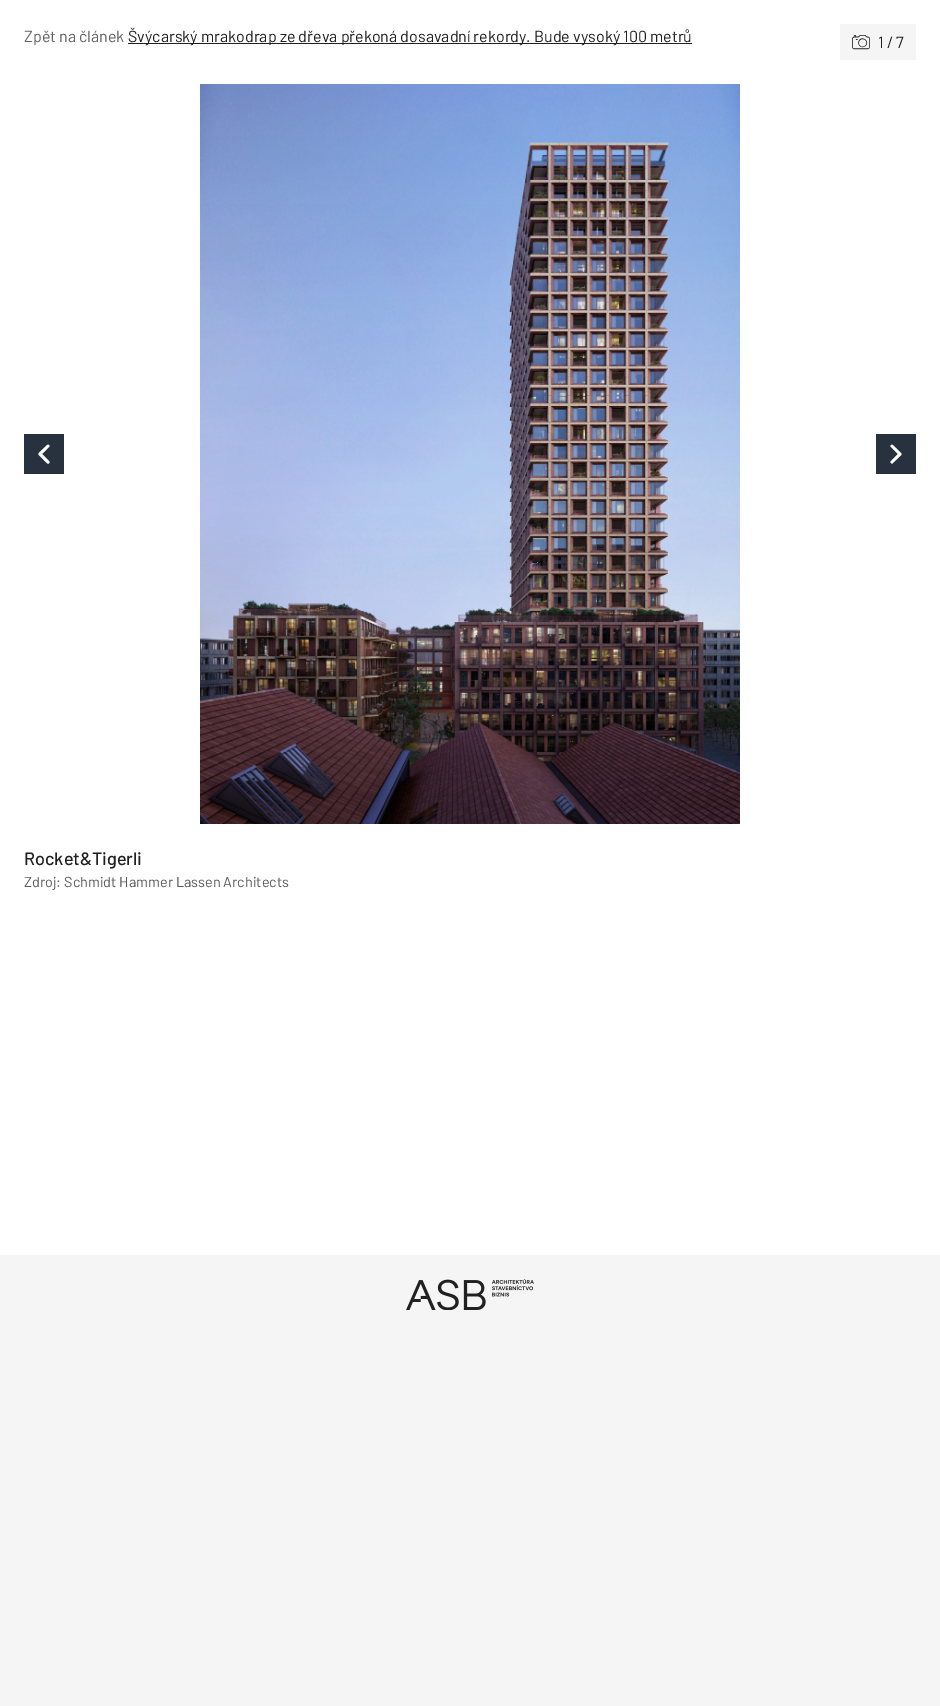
%!PS
<< /PageSize [940 1706] >> setpagedevice
/rgb { 3 { 255 div 3 1 roll } repeat setrgbcolor } def
/font { [ exch dup neg 0 0 3 -1 roll 0 0 ] selectfont } def
/text { moveto show } def
/picture { 5 dict begin { /h /w /y /x /name } { exch def } forall
  gsave x y translate w h scale
  w h 8 [w 0 0 h 0 0] name (r) file false 3 colorimage grestore end } def
0 1706 translate 1 -1 scale
4 setmiterlimit
255 255 255 rgb
0 0 940 1706 rectfill
33 33 33 rgb
128 43 564 1 rectfill
245 245 245 rgb
840 24 76 36 rectfill
(img_01.rgb) 852 35 18 15 picture
40 49 62 rgb
24 434 40 40 rectfill
(img_02.rgb) 38 444 12 20 picture
(img_03.rgb) 200 84 540 740 picture
876 434 40 40 rectfill
(img_04.rgb) 890 444 12 20 picture
245 245 245 rgb
0 1255 940 451 rectfill
(img_05.rgb) 406 1279 128 31 picture
/Barlow-Regular 16 font
97 97 97 rgb
(Zpět na článek) 24 42 text
33 33 33 rgb
(Švýcarský mrakodrap ze dřeva překoná dosavadní rekordy. Bude vysoký 100 metrů) 128 42 text
(1 / 7) 878 48 text
/Barlow-Medium 18 font
(Rocket&Tigerli) 24 865 text
/Barlow-Regular 14.4 font
89 89 89 rgb
(Zdroj: Schmidt Hammer Lassen Architects) 24 887 text
showpage
